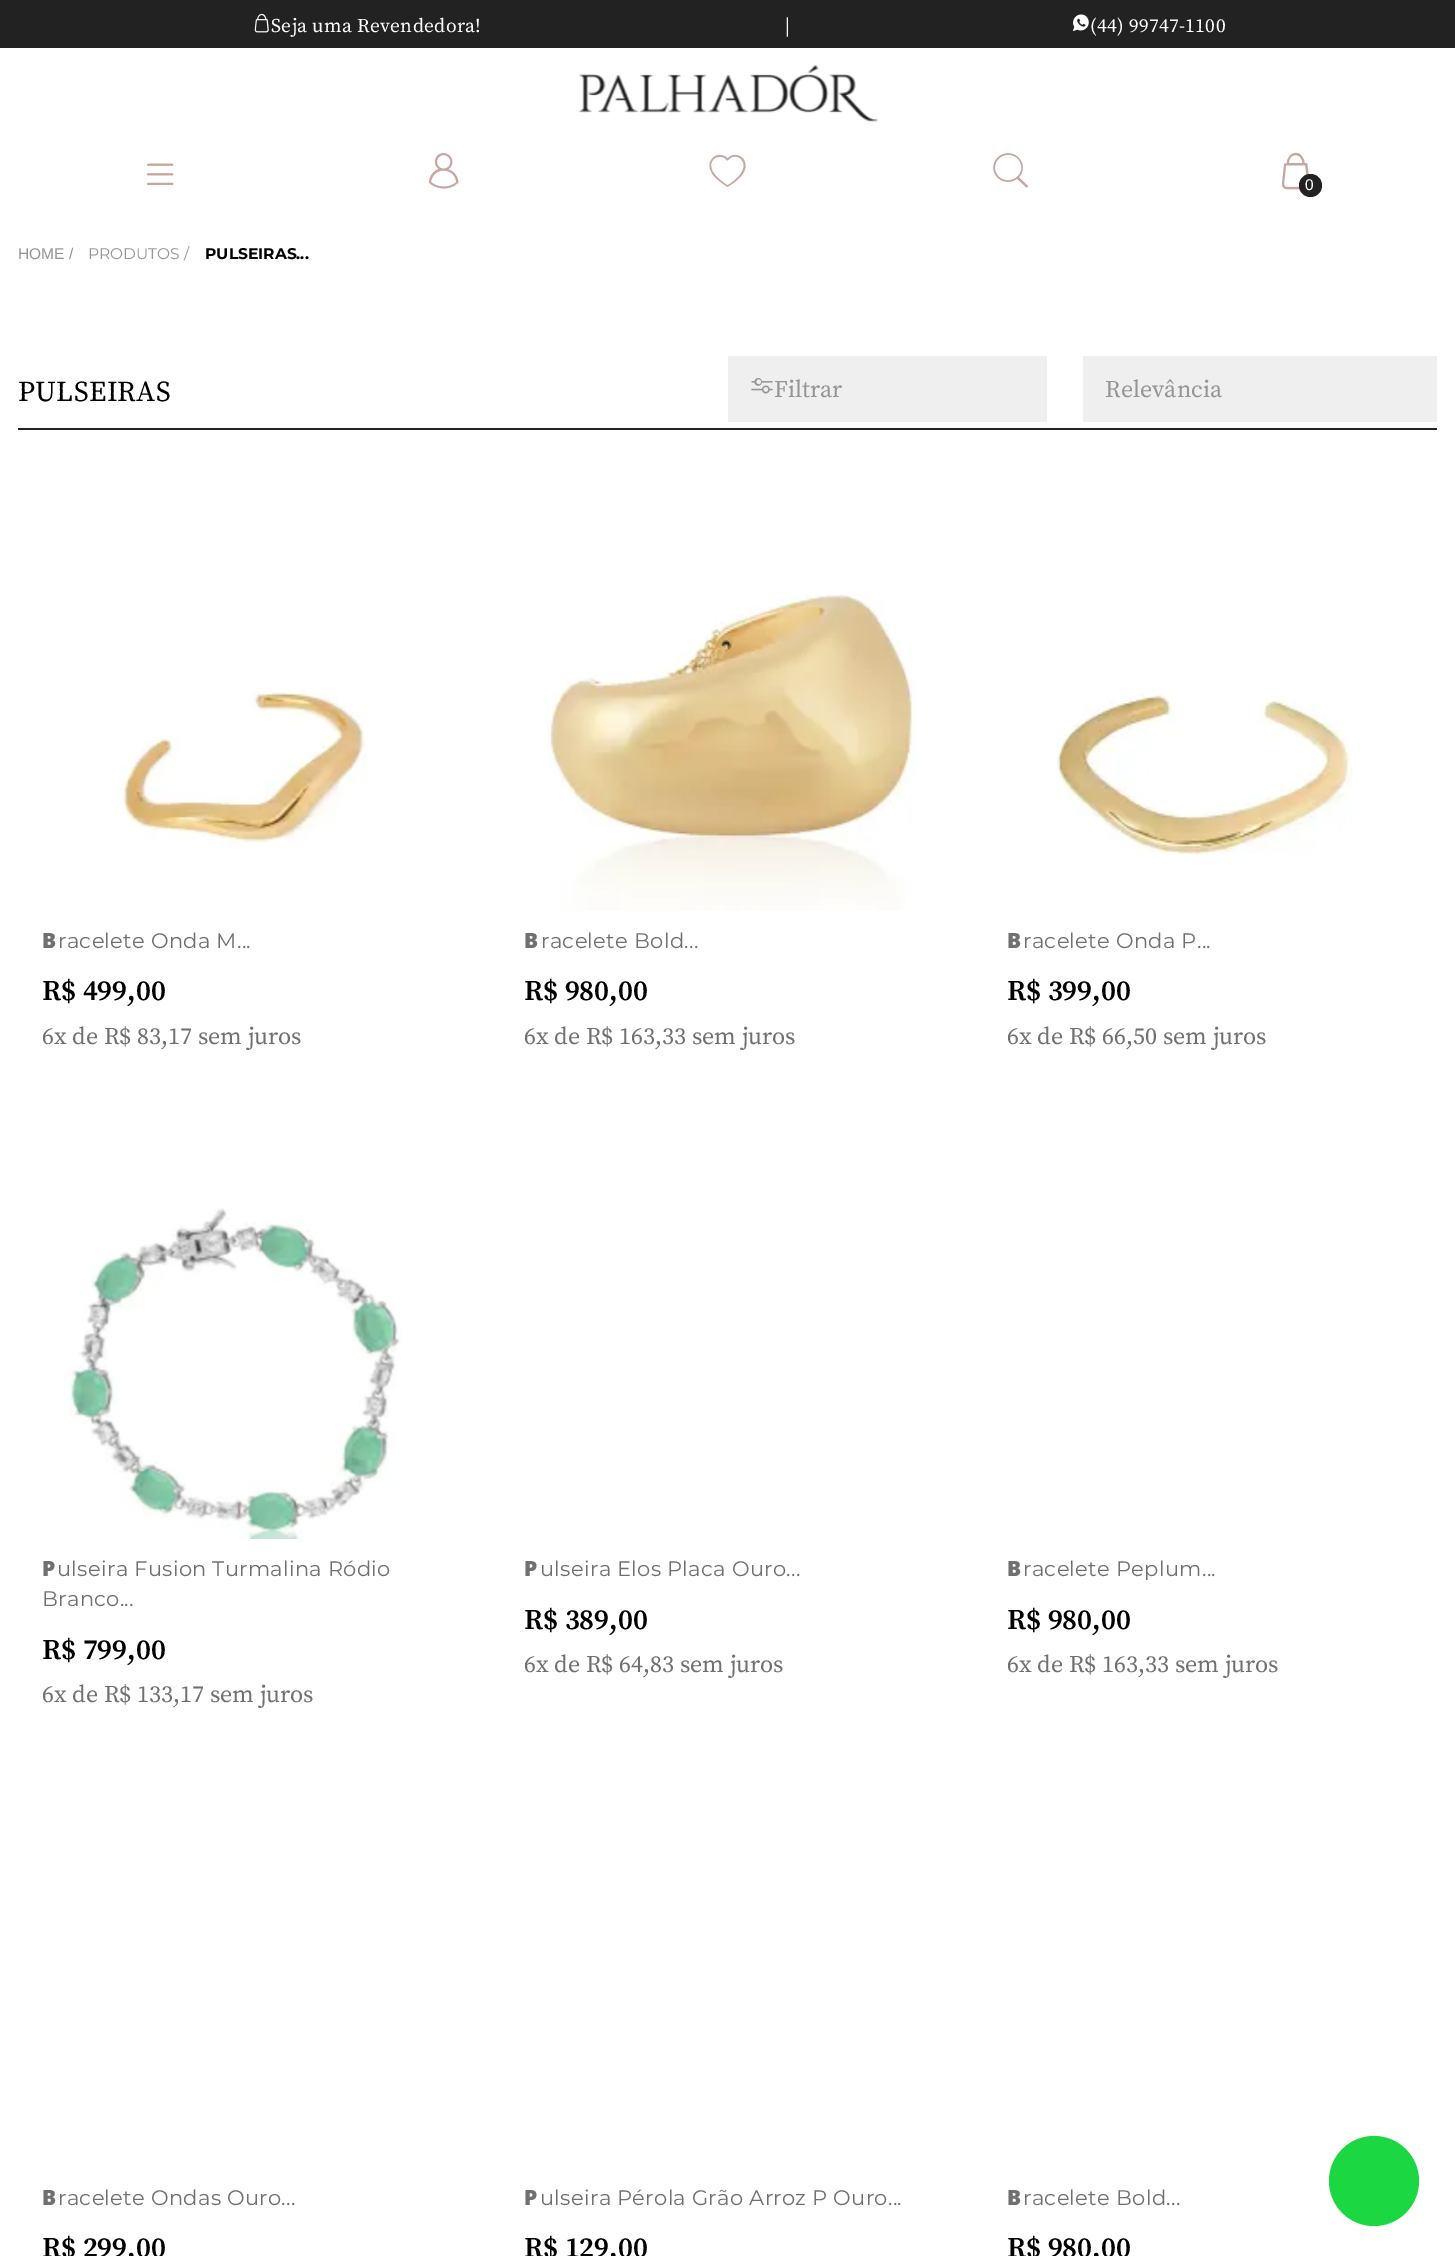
%!PS
<< /PageSize [1455 2256] >> setpagedevice
/rgb { 3 { 255 div 3 1 roll } repeat setrgbcolor } def
/font { [ exch dup neg 0 0 3 -1 roll 0 0 ] selectfont } def
/text { moveto show } def
/circle { newpath 0 360 arc closepath } def
/picture { 5 dict begin { /h /w /y /x /name } { exch def } forall
  gsave x y translate w h scale
  w h 8 [w 0 0 h 0 0] name (r) file false 3 colorimage grestore end } def
0 2256 translate 1 -1 scale
4 setmiterlimit
255 255 255 rgb
0 0 1455 2256 rectfill
34 34 34 rgb
0 0 1455 48 rectfill
(img_01.rgb) 254 13 15 20 picture
(img_02.rgb) 1072 14 17 18 picture
(img_03.rgb) 578 65 300 57 picture
(img_04.rgb) 147 163 27 23 picture
(img_05.rgb) 429 153 30 36 picture
(img_06.rgb) 709 154 37 33 picture
(img_07.rgb) 993 153 36 35 picture
(img_08.rgb) 1281 152 28 38 picture
1310.5 185.5 11.5 circle fill
18 428 1419 2 rectfill
239 239 239 rgb
728 356 319 66 rectfill
(img_09.rgb) 751 378 22 16 picture
1083 356 354 66 rectfill
(img_10.rgb) 120 692 247 157 picture
(img_11.rgb) 546 594 371 317 picture
(img_12.rgb) 1056 694 297 161 picture
(img_13.rgb) 63 1208 339 331 picture
27 215 65 rgb
1374 2181 45 circle fill
/SourceSerifPro-Regular 19.5 font
255 255 255 rgb
271 32 moveto 0.3 0 (Seja uma Revendedora!) ashow
785 32 moveto 0.3 0 (|) ashow
1090 32 moveto 0.3 0 (\(44\) 99747-1100) ashow
/LiberationSans-Regular 15.5 font
(0) 1305 190 text
149 149 149 rgb
(HOME /) 18 259 text
/Montserrat-Regular 15.5 font
(PRODUTOS /) 88 259 text
/Montserrat-Bold 15.5 font
0 0 0 rgb
(PULSEIRAS...) 205 259 text
/SourceSerifPro-Regular 28.75 font
18 401 moveto 0.3 0 (PULSEIRAS) ashow
/SourceSerifPro-Regular 24 font
149 149 149 rgb
(Filtrar) 774 397 text
(Relevância) 1105 397 text
/NotoSans-Black 21 font
112 112 112 rgb
42 948 moveto 0.3 0 (B) ashow
/Montserrat-Regular 21 font
58 948 moveto 0.3 0 (racelete Onda M...) ashow
/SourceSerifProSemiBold-SemiBold 28.75 font
0 0 0 rgb
(R$ 499,00) 42 1000 text
/SourceSerifPro-Regular 24 font
112 112 112 rgb
(6x de R$ 83,17 sem juros) 42 1044 text
/NotoSans-Black 21 font
524 948 moveto 0.3 0 (B) ashow
/Montserrat-Regular 21 font
541 948 moveto 0.3 0 (racelete Bold...) ashow
/SourceSerifProSemiBold-SemiBold 28.75 font
0 0 0 rgb
(R$ 980,00) 524 1000 text
/SourceSerifPro-Regular 24 font
112 112 112 rgb
(6x de R$ 163,33 sem juros) 524 1044 text
/NotoSans-Black 21 font
1007 948 moveto 0.3 0 (B) ashow
/Montserrat-Regular 21 font
1023 948 moveto 0.3 0 (racelete Onda P...) ashow
/SourceSerifProSemiBold-SemiBold 28.75 font
0 0 0 rgb
(R$ 399,00) 1007 1000 text
/SourceSerifPro-Regular 24 font
112 112 112 rgb
(6x de R$ 66,50 sem juros) 1007 1044 text
/NotoSans-Black 21 font
42 1576 moveto 0.3 0 (P) ashow
/Montserrat-Regular 21 font
57 1576 moveto 0.3 0 (ulseira Fusion Turmalina Ródio) ashow
42 1606 moveto 0.3 0 (Branco...) ashow
/SourceSerifProSemiBold-SemiBold 28.75 font
0 0 0 rgb
(R$ 799,00) 42 1659 text
/SourceSerifPro-Regular 24 font
112 112 112 rgb
(6x de R$ 133,17 sem juros) 42 1702 text
/NotoSans-Black 21 font
524 1576 moveto 0.3 0 (P) ashow
/Montserrat-Regular 21 font
540 1576 moveto 0.3 0 (ulseira Elos Placa Ouro...) ashow
/SourceSerifProSemiBold-SemiBold 28.75 font
0 0 0 rgb
(R$ 389,00) 524 1629 text
/SourceSerifPro-Regular 24 font
112 112 112 rgb
(6x de R$ 64,83 sem juros) 524 1672 text
/NotoSans-Black 21 font
1007 1576 moveto 0.3 0 (B) ashow
/Montserrat-Regular 21 font
1023 1576 moveto 0.3 0 (racelete Peplum...) ashow
/SourceSerifProSemiBold-SemiBold 28.75 font
0 0 0 rgb
(R$ 980,00) 1007 1629 text
/SourceSerifPro-Regular 24 font
112 112 112 rgb
(6x de R$ 163,33 sem juros) 1007 1672 text
/NotoSans-Black 21 font
42 2205 moveto 0.3 0 (B) ashow
/Montserrat-Regular 21 font
58 2205 moveto 0.3 0 (racelete Ondas Ouro...) ashow
/SourceSerifProSemiBold-SemiBold 28.75 font
0 0 0 rgb
(R$ 299,00) 42 2257 text
/NotoSans-Black 21 font
112 112 112 rgb
524 2205 moveto 0.3 0 (P) ashow
/Montserrat-Regular 21 font
540 2205 moveto 0.3 0 (ulseira Pérola Grão Arroz P Ouro...) ashow
/SourceSerifProSemiBold-SemiBold 28.75 font
0 0 0 rgb
(R$ 129,00) 524 2257 text
/NotoSans-Black 21 font
112 112 112 rgb
1007 2205 moveto 0.3 0 (B) ashow
/Montserrat-Regular 21 font
1023 2205 moveto 0.3 0 (racelete Bold...) ashow
/SourceSerifProSemiBold-SemiBold 28.75 font
0 0 0 rgb
(R$ 980,00) 1007 2257 text
showpage
